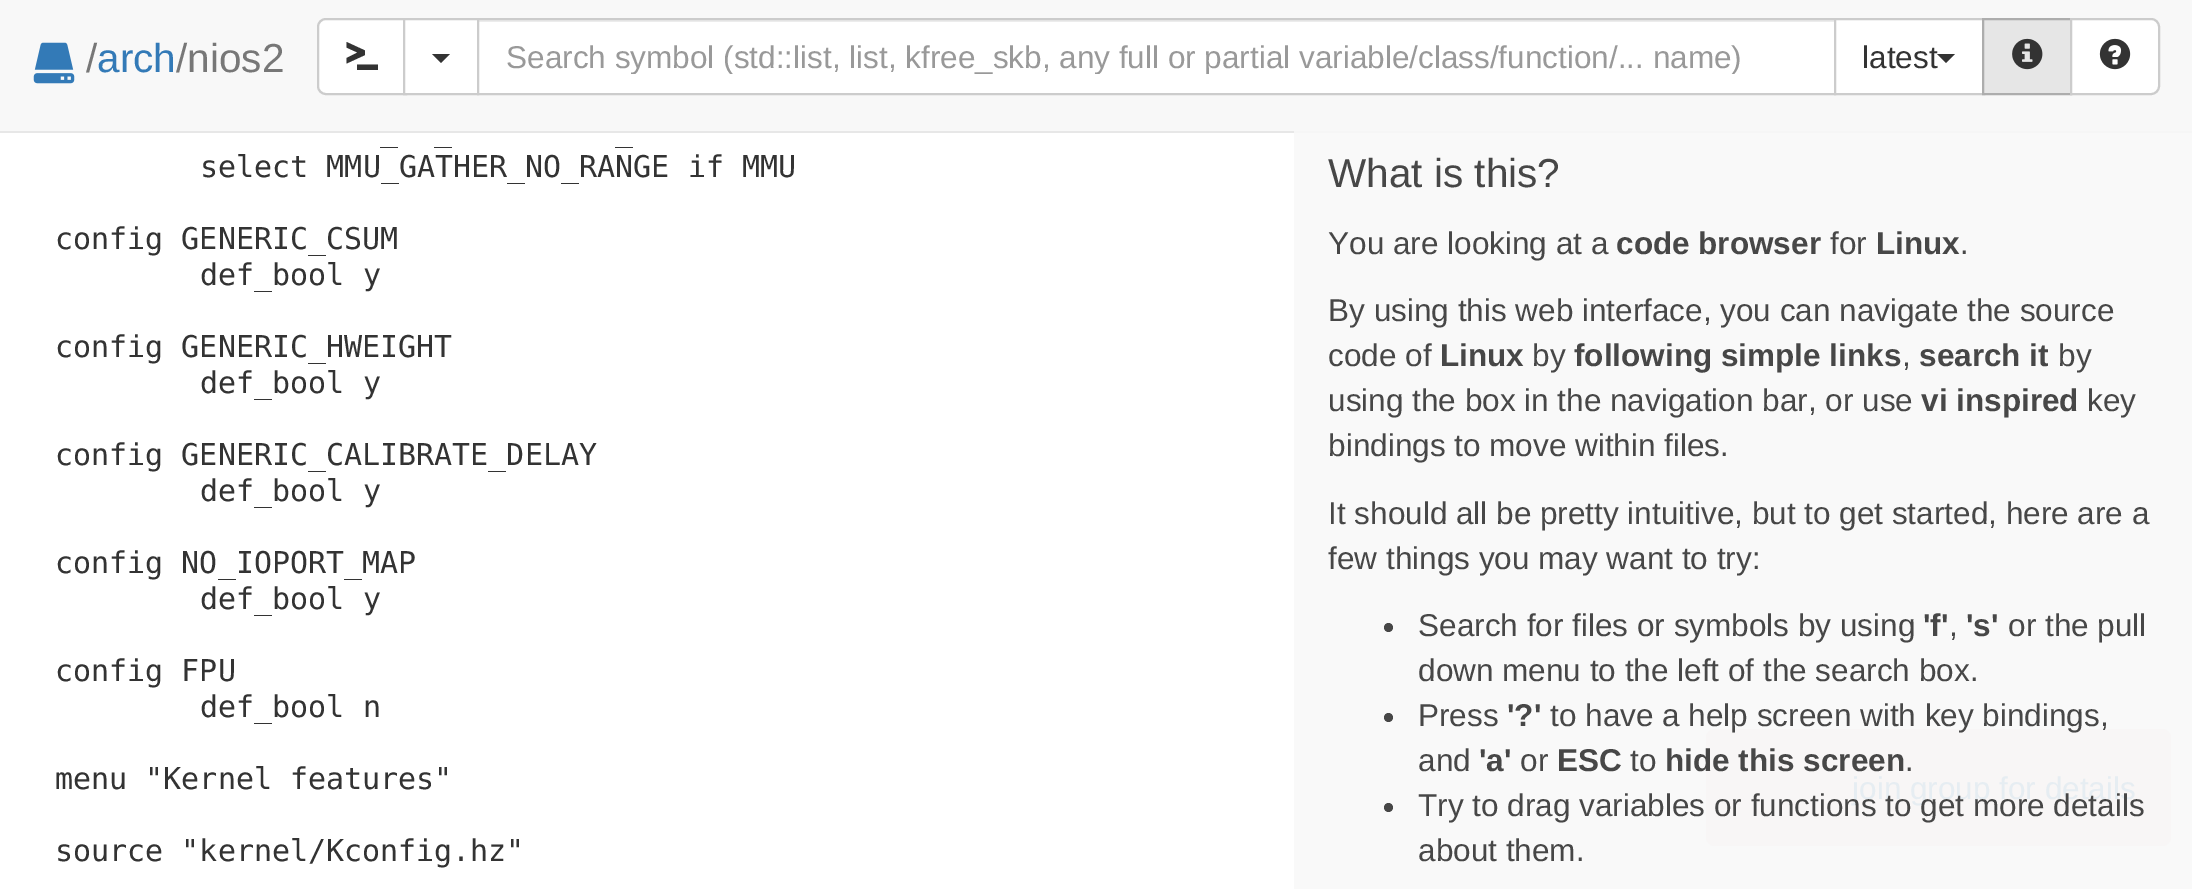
%!PS
<< /PageSize [2192 889] >> setpagedevice
/rgb { 3 { 255 div 3 1 roll } repeat setrgbcolor } def
/font { [ exch dup neg 0 0 3 -1 roll 0 0 ] selectfont } def
/text { moveto show } def
/circle { newpath 0 360 arc closepath } def
/roundrect { 5 dict begin { /r /h /w /y /x } { exch def } forall
  x r add y moveto x w add y 2 copy h add r arct x w add y h add x 1 index r arct
  x y h add x y r arct x y 2 copy exch w add exch r arct closepath end } def
/picture { 5 dict begin { /h /w /y /x /name } { exch def } forall
  gsave x y translate w h scale
  w h 8 [w 0 0 h 0 0] name (r) file false 3 colorimage grestore end } def
0 889 translate 1 -1 scale
4 setmiterlimit
255 255 255 rgb
0 0 2192 889 rectfill
249 249 249 rgb
1294 133 898 756 rectfill
248 248 248 rgb
0 0 2192 131 rectfill
231 231 231 rgb
0 131 1294 2 rectfill
246 246 246 rgb
1294 131 898 2 rectfill
(img_01.rgb) 33 42 42 42 picture
255 255 255 rgb
326 19 moveto 80 0 rlineto 0 75 rlineto -80 0 rlineto -4.5 0 -8 -3.5 -8 -8 rcurveto 0 -59 rlineto 0 -4.5 3.5 -8 8 -8 rcurveto closepath gsave fill grestore
204 204 204 rgb
2 setlinewidth
stroke
51 51 51 rgb
365 50.5 moveto 0 4.5 rlineto -18.5 8.5 rlineto 0 -5.5 rlineto 11 -5.5 rlineto -11 -5 rlineto 0 -5.5 rlineto closepath 378 70 moveto -21 0 rlineto 0 -5.5 rlineto 21 0 rlineto closepath fill
255 255 255 rgb
404 19 moveto 74 0 rlineto 0 75 rlineto -74 0 rlineto closepath gsave fill grestore
204 204 204 rgb
stroke
51 51 51 rgb
432 54 moveto 18 0 rlineto -9 9 rlineto closepath fill
255 255 255 rgb
479 22 1355 71 rectfill
236 236 236 rgb
479 20 1355 2 rectfill
204 204 204 rgb
478 19 1357 75 rectstroke
255 255 255 rgb
1836 20 146 73 rectfill
204 204 204 rgb
1835 19 149 75 rectstroke
51 51 51 rgb
1937 54 moveto 18 0 rlineto -9 9 rlineto closepath fill
230 230 230 rgb
1983 19 moveto 88 0 rlineto 0 75 rlineto -88 0 rlineto closepath gsave fill grestore
173 173 173 rgb
stroke
(img_02.rgb) 2012 38 31 32 picture
255 255 255 rgb
2071 19 moveto 80 0 rlineto 4.5 0 8 3.5 8 8 rcurveto 0 59 rlineto 0 4.5 -3.5 8 -8 8 rcurveto -80 0 rlineto closepath gsave fill grestore
204 204 204 rgb
stroke
(img_03.rgb) 2099 38 32 32 picture
71 71 71 rgb
1388.5 627.5 4.5 circle fill
1388.5 717.5 4.5 circle fill
1388.5 807.5 4.5 circle fill
248 246 246 rgb
1706 729 465 117 9 roundrect fill
/LiberationSans-Regular 40.5 font
119 119 119 rgb
(/) 86 72 text
51 122 183 rgb
(arch) 97 72 text
119 119 119 rgb
(/nios2) 176 72 text
gsave
506 38 1301 36 rectclip
/LiberationSans-Regular 31.5 font
153 153 153 rgb
(Search symbol \(std::list, list, kfree_skb, any full or partial variable/class/function/... name\)) 506 68 text
grestore
/LiberationSans-Regular 31.5 font
51 51 51 rgb
(latest) 1862 68 text
/DejaVuSansMono-Regular 30 font
(_) 380 141 text
(_) 434 141 text
(_) 615 141 text
(select MMU_GATHER_NO_RANGE if MMU) 200 177 text
(config GENERIC_CSUM) 55 249 text
(def_bool y) 200 285 text
(config GENERIC_HWEIGHT) 55 357 text
(def_bool y) 200 393 text
(config GENERIC_CALIBRATE_DELAY) 55 465 text
(def_bool y) 200 501 text
(config NO_IOPORT_MAP) 55 573 text
(def_bool y) 200 609 text
(config FPU) 55 681 text
(def_bool n) 200 717 text
(menu "Kernel features") 55 789 text
(source "kernel/Kconfig.hz") 55 861 text
/LiberationSans-Regular 40.5 font
71 71 71 rgb
(What is this?) 1328 187 text
/LiberationSans-Regular 31.5 font
(You are looking at a) 1328 254 text
/LiberationSans-Bold 31.5 font
(code browser) 1616 254 text
/LiberationSans-Regular 31.5 font
(for) 1830 254 text
/LiberationSans-Bold 31.5 font
(Linux) 1876 254 text
/LiberationSans-Regular 31.5 font
(.) 1960 254 text
(By using this web interface, you can navigate the source) 1328 321 text
(code of) 1328 366 text
/LiberationSans-Bold 31.5 font
(Linux) 1440 366 text
/LiberationSans-Regular 31.5 font
(by) 1532 366 text
/LiberationSans-Bold 31.5 font
(following simple links) 1574 366 text
/LiberationSans-Regular 31.5 font
(,) 1902 366 text
/LiberationSans-Bold 31.5 font
(search it) 1919 366 text
/LiberationSans-Regular 31.5 font
(by) 2058 366 text
(using the box in the navigation bar, or use) 1328 411 text
/LiberationSans-Bold 31.5 font
(vi inspired) 1921 411 text
/LiberationSans-Regular 31.5 font
(key) 2087 411 text
(bindings to move within files.) 1328 456 text
(It should all be pretty intuitive, but to get started, here are a) 1328 524 text
(few things you may want to try:) 1328 569 text
(Search for files or symbols by using) 1418 636 text
/LiberationSans-Bold 31.5 font
('f') 1923 636 text
('s') 1966 636 text
/LiberationSans-Regular 31.5 font
(or the pull) 2008 636 text
(,) 1949 636 text
(down menu to the left of the search box.) 1418 681 text
(Press) 1418 726 text
/LiberationSans-Bold 31.5 font
('?') 1507 726 text
/LiberationSans-Regular 31.5 font
(to have a help screen with key bindings,) 1550 726 text
(and) 1418 771 text
/LiberationSans-Bold 31.5 font
('a') 1479 771 text
/LiberationSans-Regular 31.5 font
(or) 1520 771 text
/LiberationSans-Bold 31.5 font
(ESC) 1557 771 text
/LiberationSans-Regular 31.5 font
(to) 1630 771 text
/LiberationSans-Bold 31.5 font
(hide this screen) 1665 771 text
/LiberationSans-Regular 31.5 font
(.) 1905 771 text
(about them.) 1418 861 text
230 237 242 rgb
(join group for details) 1852 799 text
71 71 71 rgb
(Try to drag variables or functions to get more details) 1418 816 text
showpage
